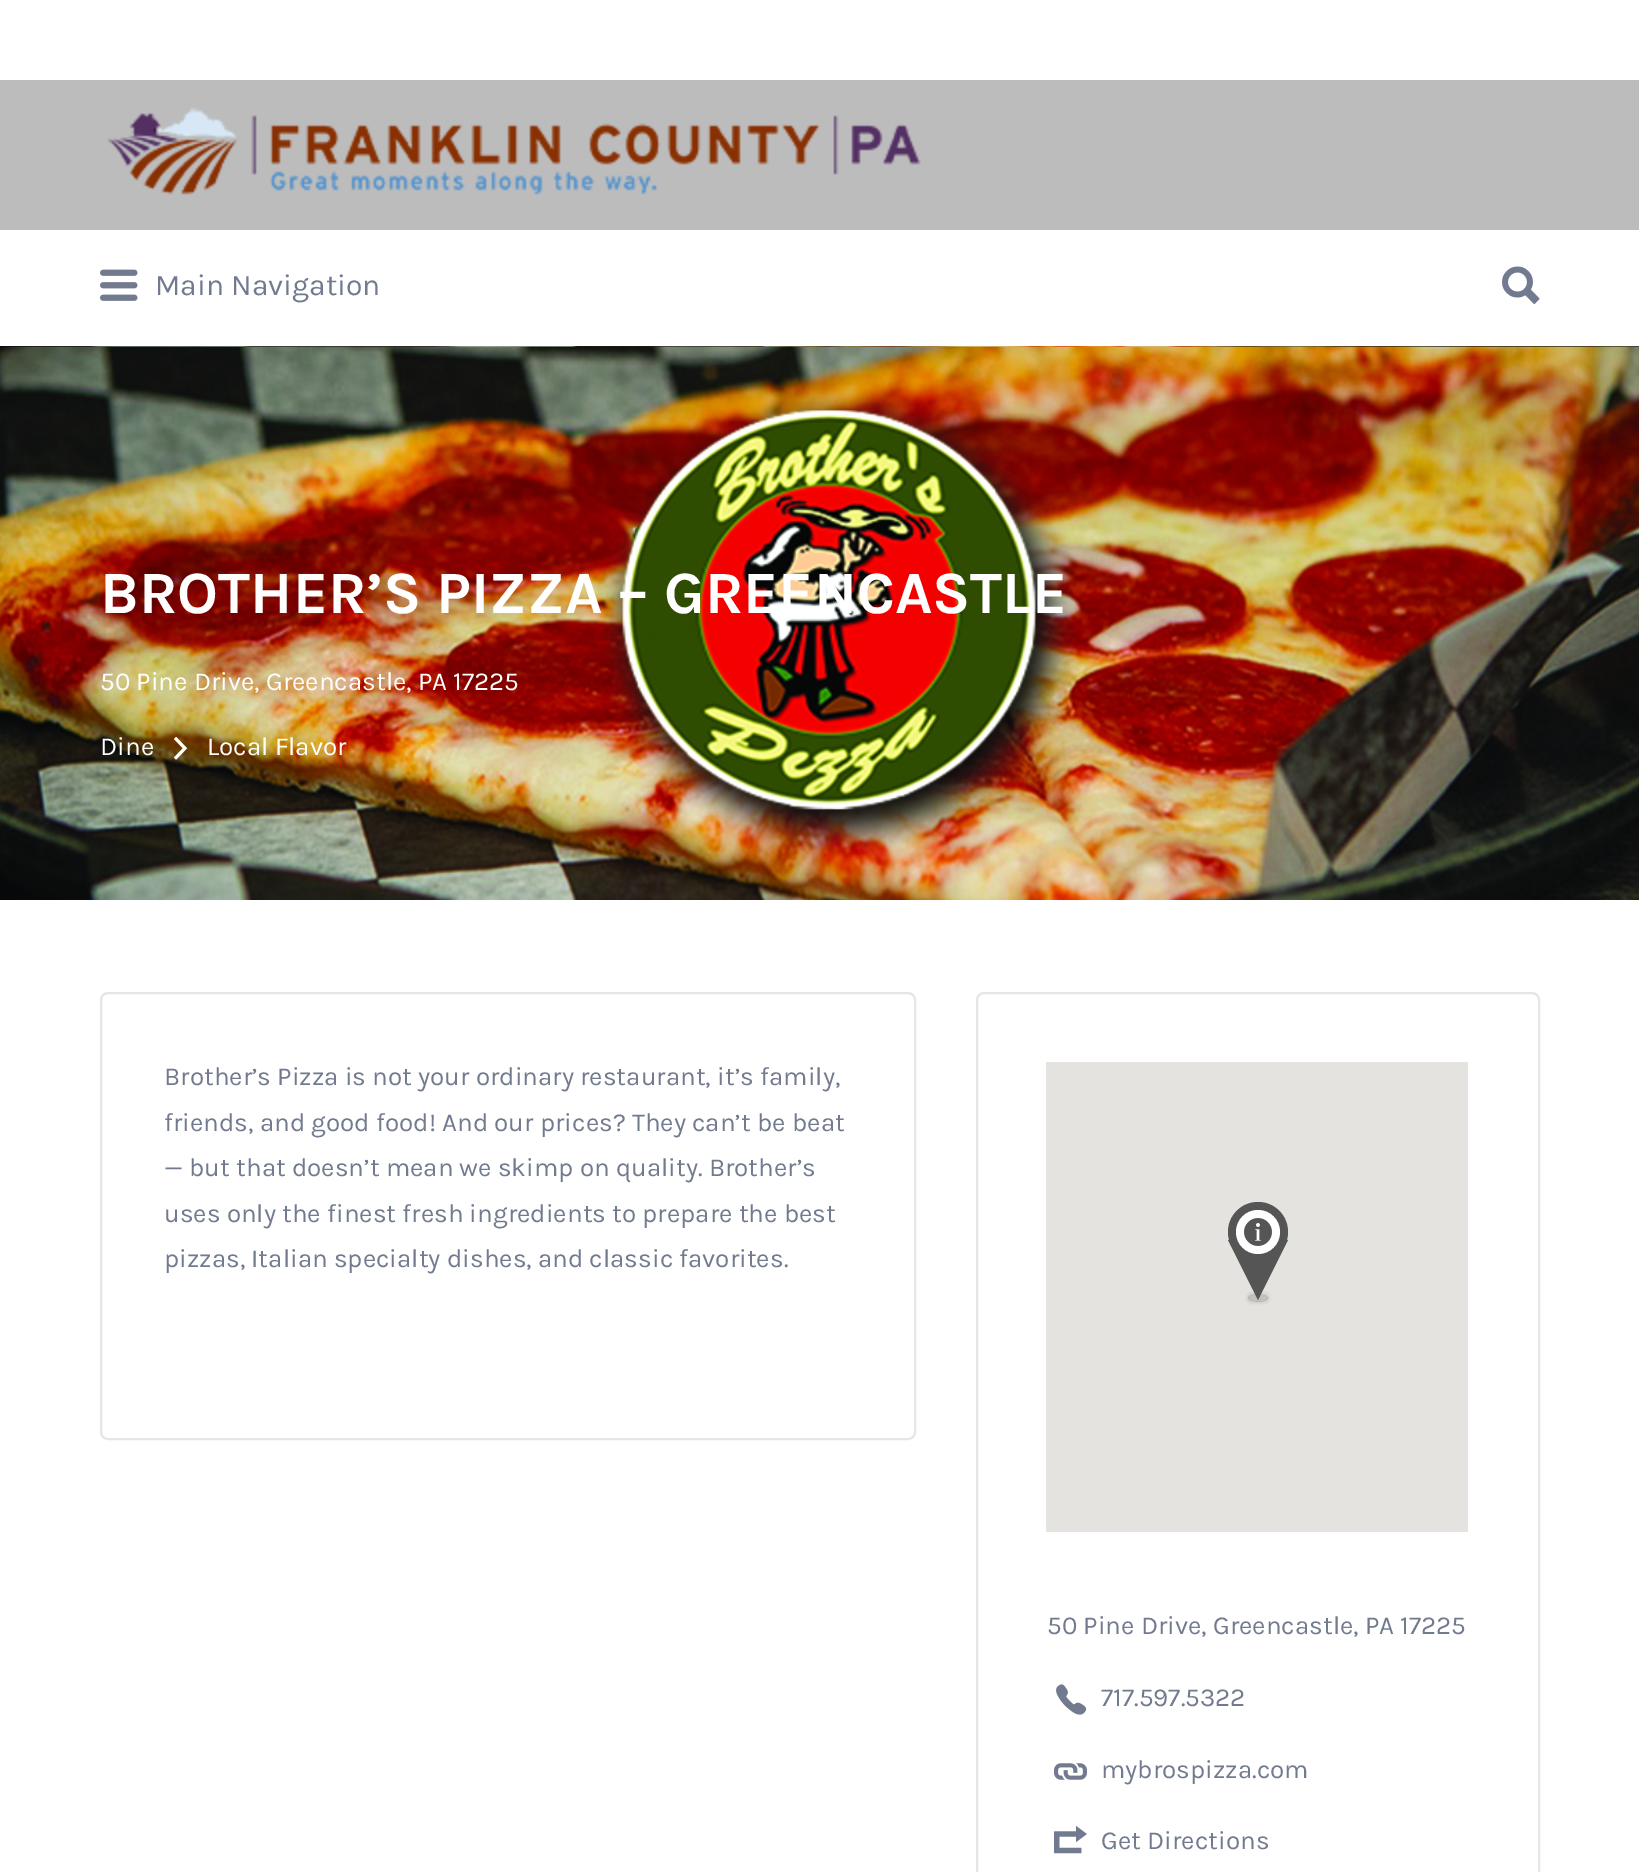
%!PS
<< /PageSize [1639 1872] /PageUsesTransparency true >> setpagedevice
/rgb { 3 { 255 div 3 1 roll } repeat setrgbcolor } def
/font { [ exch dup neg 0 0 3 -1 roll 0 0 ] selectfont } def
/text { moveto show } def
/alpha { dup .setfillconstantalpha .setstrokeconstantalpha } def
/circle { newpath 0 360 arc closepath } def
/roundrect { 5 dict begin { /r /h /w /y /x } { exch def } forall
  x r add y moveto x w add y 2 copy h add r arct x w add y h add x 1 index r arct
  x y h add x y r arct x y 2 copy exch w add exch r arct closepath end } def
/shadow { 12 dict begin { /a /b /q /h /w /y /x } { exch def } forall gsave /was 0 def
  9 -2 -9 { dup b mul 4 div /e exch def 1 sub .425 mul 2.718 exch exp 1 add a .99 .min exch div /now exch def
    1 1 now sub 1 was sub div sub alpha /was now def
    w h .min e 2 mul add 0 gt { x e sub y e sub w e 2 mul add h e 2 mul add
      q e add b .6 mul add w h .min 2 div e add .min 0 .max roundrect fill } if } for grestore end } def
/picture { 5 dict begin { /h /w /y /x /name } { exch def } forall
  gsave x y translate w h scale
  w h 8 [w 0 0 h 0 0] name (r) file false 3 colorimage grestore end } def
0 .pushpdf14devicefilter
0 1872 translate 1 -1 scale
4 setmiterlimit
255 255 255 rgb
0 0 1639 1872 rectfill
188 188 188 rgb
0 80 1639 150 rectfill
(img_01.rgb) 107 107 814 88 picture
(img_02.rgb) 100 269 38 32 picture
(img_03.rgb) 1502 266 38 38 picture
(img_04.rgb) 0 346 1639 554 picture
(img_05.rgb) 174 736 13 24 picture
229 229 229 rgb
2 setlinewidth
101 993 814 446 7 roundrect stroke
977 993 562 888 7 roundrect stroke
229 227 223 rgb
1046 1062 422 470 rectfill
gsave
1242 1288 moveto 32 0 rlineto 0 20 rlineto -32 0 rlineto closepath 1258 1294 moveto 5.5 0 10 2 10 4 rcurveto 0 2 -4.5 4 -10 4 rcurveto -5.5 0 -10 -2 -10 -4 rcurveto 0 -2 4.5 -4 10 -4 rcurveto closepath eoclip newpath
0 0 0 rgb
1246 1292 24 12 6 1 0.05 shadow
grestore
0.15 alpha
0 0 0 rgb
1258 1294 moveto 5.5 0 10 2 10 4 rcurveto 0 2 -4.5 4 -10 4 rcurveto -5.5 0 -10 -2 -10 -4 rcurveto 0 -2 4.5 -4 10 -4 rcurveto closepath fill
1 alpha
85 85 85 rgb
1228 1240 moveto 60 0 rlineto -30 60 rlineto closepath fill
1258 1232 30 circle fill
255 255 255 rgb
1258 1232 22 circle fill
(img_06.rgb) 1244 1218 28 28 picture
(img_07.rgb) 1056 1684 31 31 picture
(img_08.rgb) 1054 1763 33 17 picture
(img_09.rgb) 1054 1825 33 29 picture
/Karla-Regular 30 font
113 122 143 rgb
(Main Navigation) 155 295 text
/Karla-Bold 60 font
255 255 255 rgb
(BROTHER’S PIZZA – GREENCASTLE) 100 613 text
/Karla-Regular 26 font
(50 Pine Drive, Greencastle, PA 17225) 100 690 text
(Dine) 100 755 text
(Local Flavor) 207 755 text
113 122 143 rgb
(Brother’s Pizza is not your ordinary restaurant, it’s family,) 164 1085 text
(friends, and good food! And our prices? They can’t be beat) 164 1131 text
(— but that doesn’t mean we skimp on quality. Brother’s) 164 1176 text
(uses only the finest fresh ingredients to prepare the best) 164 1222 text
(pizzas, Italian specialty dishes, and classic favorites.) 164 1267 text
(50 Pine Drive, Greencastle, PA 17225) 1047 1634 text
(717.597.5322) 1101 1706 text
(mybrospizza.com) 1101 1778 text
(Get Directions) 1101 1849 text
.poppdf14devicefilter showpage
